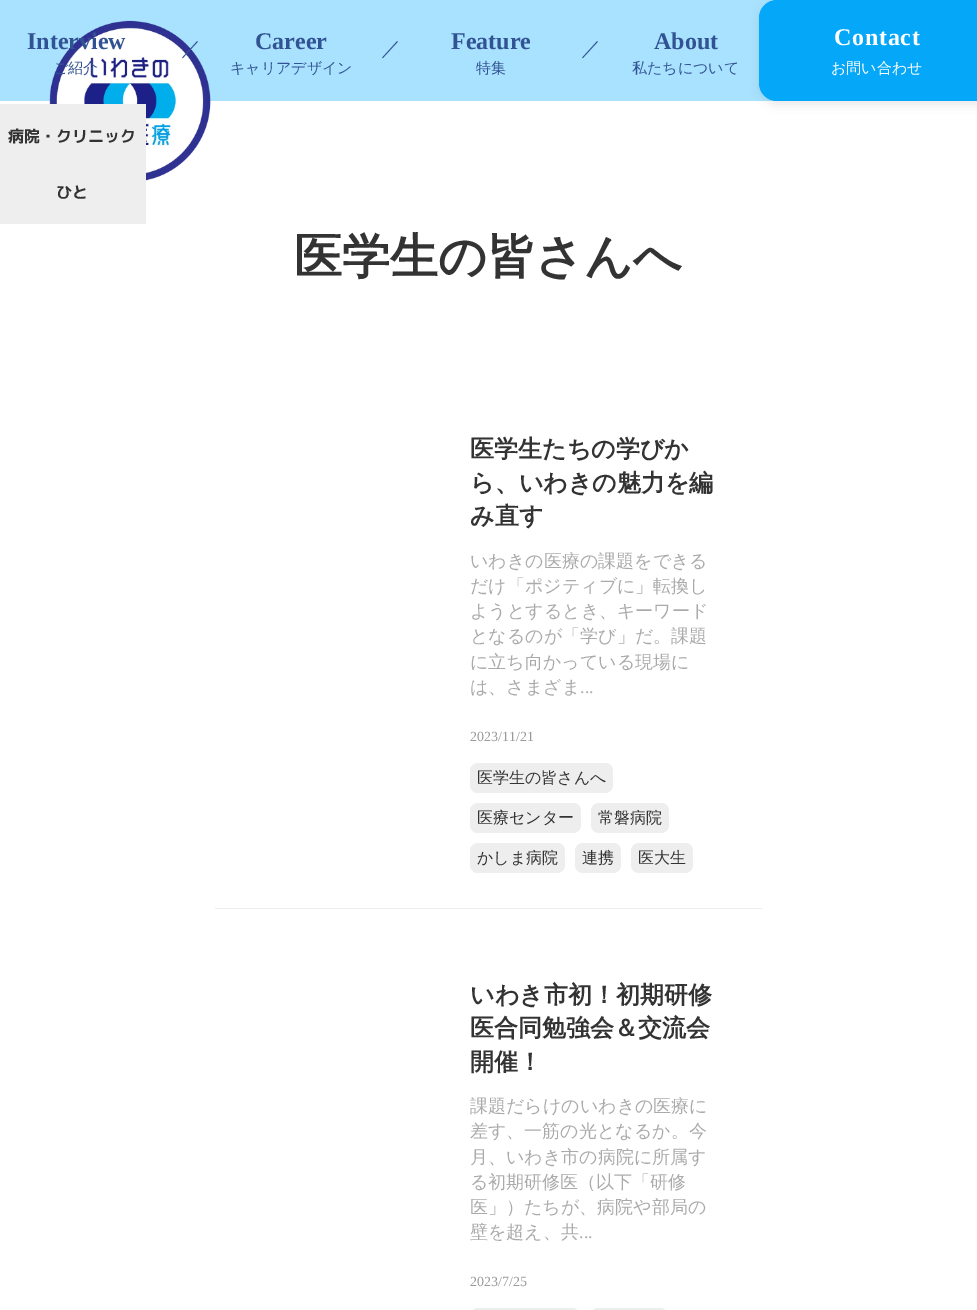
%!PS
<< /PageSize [977 1310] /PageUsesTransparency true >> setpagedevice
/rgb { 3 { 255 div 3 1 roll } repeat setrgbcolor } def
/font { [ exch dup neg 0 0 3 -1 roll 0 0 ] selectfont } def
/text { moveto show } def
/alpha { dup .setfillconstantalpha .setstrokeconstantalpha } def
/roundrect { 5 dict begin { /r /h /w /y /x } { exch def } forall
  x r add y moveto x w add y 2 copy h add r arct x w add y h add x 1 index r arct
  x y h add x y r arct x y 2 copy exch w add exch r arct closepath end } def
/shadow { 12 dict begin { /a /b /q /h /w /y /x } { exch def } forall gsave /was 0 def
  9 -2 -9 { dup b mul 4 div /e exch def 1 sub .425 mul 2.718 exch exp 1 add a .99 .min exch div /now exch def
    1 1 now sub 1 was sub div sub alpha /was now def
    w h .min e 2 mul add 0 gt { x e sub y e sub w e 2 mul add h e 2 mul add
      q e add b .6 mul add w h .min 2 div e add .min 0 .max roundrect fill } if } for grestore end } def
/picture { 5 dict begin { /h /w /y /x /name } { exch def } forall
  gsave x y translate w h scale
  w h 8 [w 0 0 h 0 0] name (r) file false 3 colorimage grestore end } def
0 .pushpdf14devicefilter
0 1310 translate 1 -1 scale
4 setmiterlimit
255 255 255 rgb
0 0 977 1310 rectfill
169 226 255 rgb
0 0 777 101 rectfill
(img_01.rgb) 49 20 162 161 picture
0 0 0 rgb
760 3 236 101 18 5 0.1 shadow
5 167 249 rgb
777 0 moveto 200 0 rlineto 0 101 rlineto -200 0 rlineto -10 0 -18 -8 -18 -18 rcurveto 0 -65 rlineto 0 -10 8 -18 18 -18 rcurveto closepath fill
238 238 238 rgb
0 104 146 120 rectfill
215 908 547 1 rectfill
470 763 143 30 8 roundrect fill
470 803 111 30 8 roundrect fill
591 803 78 30 8 roundrect fill
470 843 95 30 8 roundrect fill
575 843 46 30 8 roundrect fill
631 843 62 30 8 roundrect fill
470 1308 110 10 8 roundrect fill
590 1308 78 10 8 roundrect fill
/LiberationSerif-Bold 24 font
255 255 255 rgb
834 45 moveto 0.75 0 (Contact) ashow
/WenQuanYiZenHei-Medium 15 font
(お問い合わせ) 831 73 text
/LiberationSerif-Bold 24 font
50 83 147 rgb
(Interview) 27 49 text
/WenQuanYiZenHei-Medium 15 font
(ご紹介) 53 73 text
/MPLUS1p-Bold 16 font
51 51 51 rgb
(病院・クリニック) 8 142 text
(ひと) 56 198 text
/WenQuanYiZenHei-Medium 20 font
50 83 147 rgb
(／) 181 55 text
/LiberationSerif-Bold 24 font
(Career) 255 49 text
/WenQuanYiZenHei-Medium 15 font
(キャリアデザイン) 230 73 text
/WenQuanYiZenHei-Medium 20 font
(／) 381 55 text
/LiberationSerif-Bold 24 font
(Feature) 451 49 text
/WenQuanYiZenHei-Medium 15 font
(特集) 476 73 text
/WenQuanYiZenHei-Medium 20 font
(／) 581 55 text
/LiberationSerif-Bold 24 font
(About) 654 49 text
/WenQuanYiZenHei-Medium 15 font
(私たちについて) 632 73 text
/WenQuanYiZenHei-Bold 48 font
51 51 51 rgb
(医学生の皆さんへ) 294 273 text
/WenQuanYiZenHei-Bold 24 font
(医学生たちの学びか) 470 457 text
(ら、いわきの魅力を編) 470 491 text
(み直す) 470 524 text
/WenQuanYiZenHei-Medium 18 font
170 170 170 rgb
(いわきの医療の課題をできる) 470 567 text
(だけ「ポジティブに」転換し) 470 592 text
(ようとするとき、キーワード) 470 617 text
(となるのが「学び」だ。課題) 470 642 text
(に立ち向かっている現場に) 470 668 text
(は、さまざま) 470 693 text
/LiberationSerif-Regular 18 font
(...) 580 693 text
/LiberationSerif-Regular 14 font
153 153 153 rgb
(2023/11/21) 470 741 text
/WenQuanYiZenHei-Medium 16 font
51 51 51 rgb
(医学生の皆さんへ) 477 783 text
(医療センター) 477 823 text
(常磐病院) 598 823 text
(かしま病院) 477 863 text
(連携) 582 863 text
(医大生) 638 863 text
/WenQuanYiZenHei-Bold 24 font
(いわき市初！初期研修) 470 1003 text
(医合同勉強会＆交流会) 470 1036 text
(開催！) 470 1070 text
/WenQuanYiZenHei-Medium 18 font
170 170 170 rgb
(課題だらけのいわきの医療に) 470 1112 text
(差す、一筋の光となるか。今) 470 1137 text
(月、いわき市の病院に所属す) 470 1163 text
(る初期研修医（以下「研修) 470 1188 text
(医」）たちが、病院や部局の) 470 1213 text
(壁を超え、共) 470 1238 text
/LiberationSerif-Regular 18 font
(...) 579 1238 text
/LiberationSerif-Regular 14 font
153 153 153 rgb
(2023/7/25) 470 1286 text
.poppdf14devicefilter showpage
